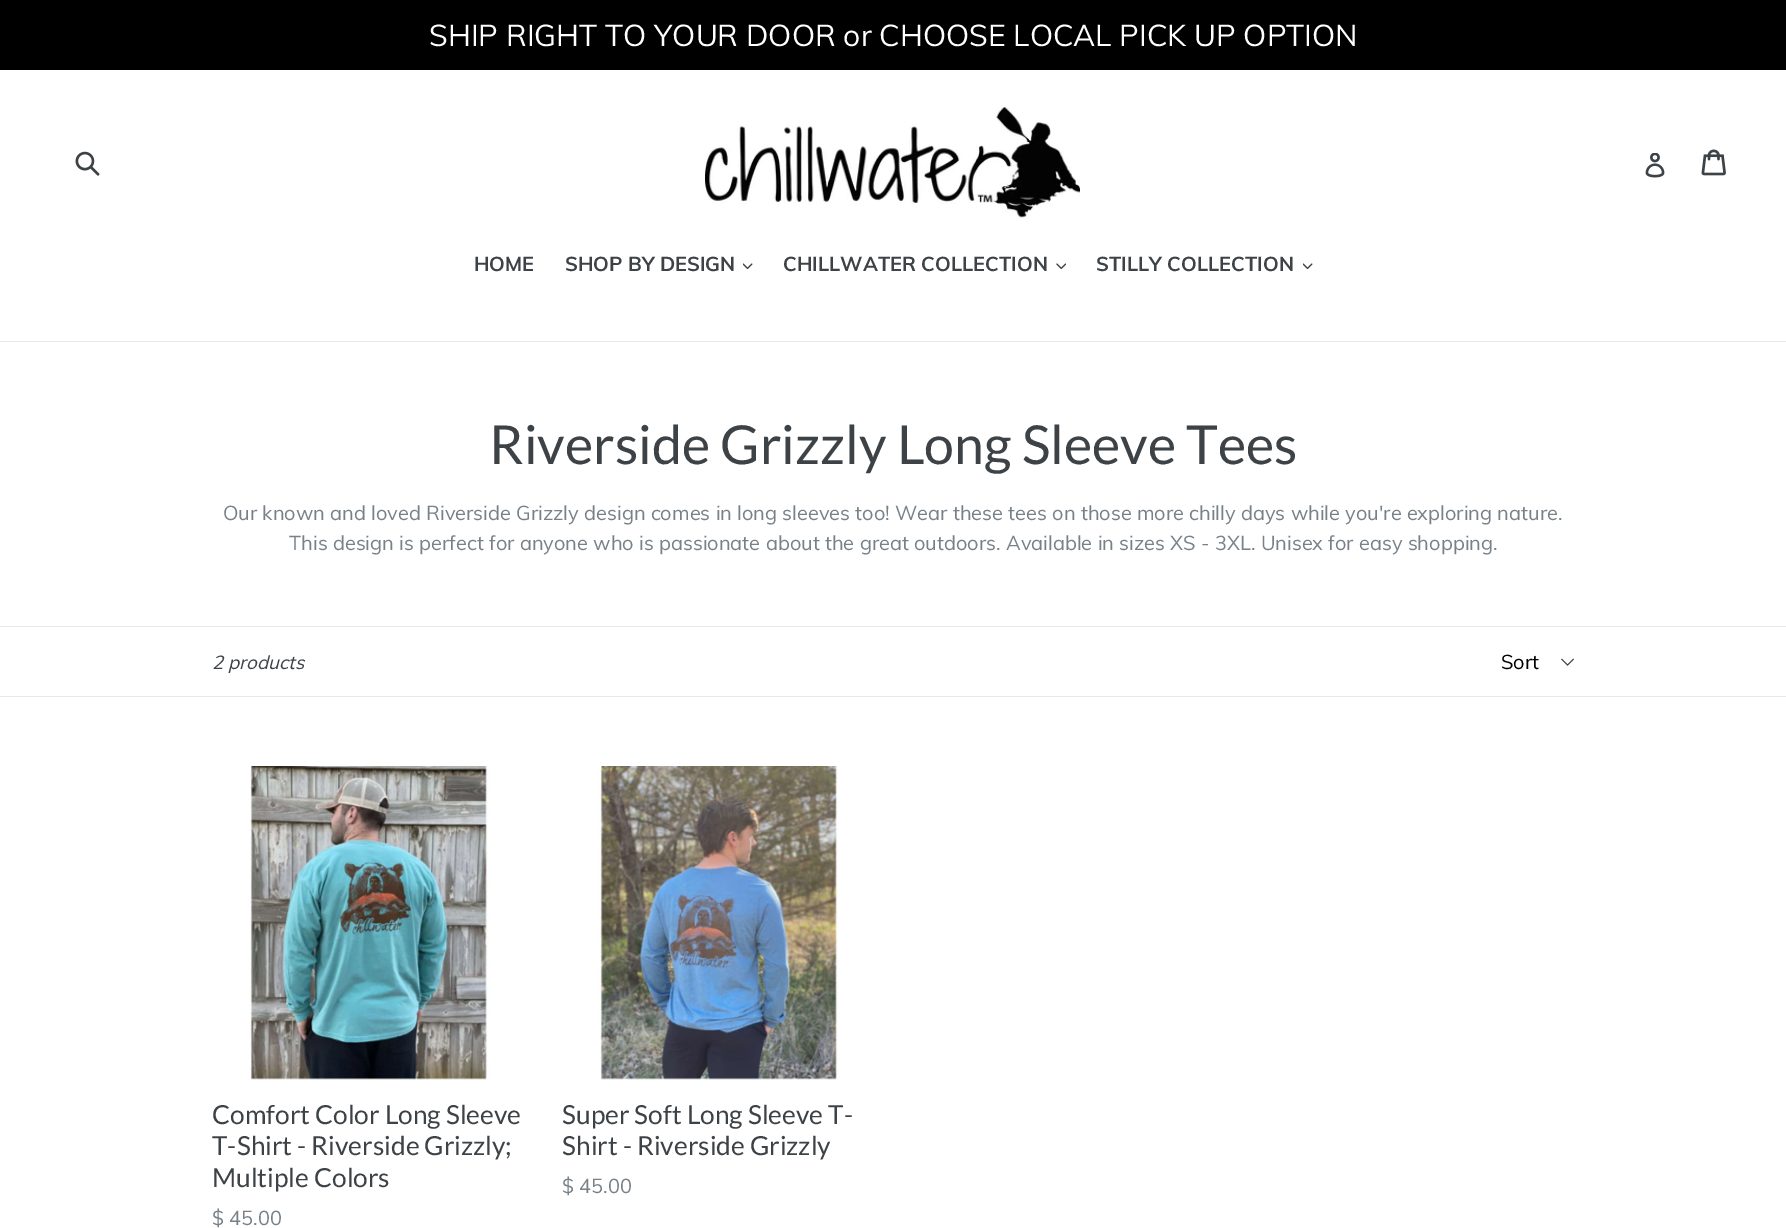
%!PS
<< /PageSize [1786 1228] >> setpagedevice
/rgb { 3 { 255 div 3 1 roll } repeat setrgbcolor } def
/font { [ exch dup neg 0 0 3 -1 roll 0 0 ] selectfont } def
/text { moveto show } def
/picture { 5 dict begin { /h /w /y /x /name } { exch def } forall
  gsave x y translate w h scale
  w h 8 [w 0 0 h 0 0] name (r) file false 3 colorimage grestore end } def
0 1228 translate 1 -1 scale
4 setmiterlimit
255 255 255 rgb
0 0 1786 1228 rectfill
0 0 0 rgb
0 0 1786 70 rectfill
(img_01.rgb) 75 151 25 25 picture
(img_02.rgb) 705 107 375 111 picture
(img_03.rgb) 1645 153 20 25 picture
(img_04.rgb) 1701 149 25 27 picture
232 233 235 rgb
0 341 1786 1 rectfill
(img_05.rgb) 743 263 10 7 picture
(img_06.rgb) 1056 263 10 7 picture
(img_05.rgb) 1303 263 10 7 picture
0 626 1786 1 rectfill
0 696 1786 1 rectfill
(img_07.rgb) 1561 658 13 8 picture
(img_08.rgb) 250 766 240 314 picture
(img_09.rgb) 598 766 240 314 picture
/Muli-Regular 30 font
255 255 255 rgb
(SHIP RIGHT TO YOUR DOOR or CHOOSE LOCAL PICK UP OPTION) 429 46 text
/Muli-Bold 20 font
61 66 70 rgb
(HOME) 474 271 text
(SHOP BY DESIGN) 565 271 text
(CHILLWATER COLLECTION) 783 271 text
(STILLY COLLECTION) 1096 271 text
/Lato-Regular 53.75 font
(Riverside Grizzly Long Sleeve Tees) 489 464 text
/Muli-Regular 20 font
120 129 136 rgb
(Our known and loved Riverside Grizzly design comes in long sleeves too! Wear these tees on those more chilly days while you're exploring nature.) 223 520 text
(This design is perfect for anyone who is passionate about the great outdoors. Available in sizes XS - 3XL. Unisex for easy shopping.) 289 550 text
/Muli-Italic 18.75 font
61 66 70 rgb
(2 products) 212 669 text
/Muli-Regular 20 font
0 0 0 rgb
(Sort) 1501 669 text
/Lato-Regular 26.25 font
61 66 70 rgb
(Comfort Color Long Sleeve) 212 1124 text
(T-Shirt - Riverside Grizzly;) 212 1155 text
(Multiple Colors) 212 1187 text
/Muli-Regular 20 font
120 129 136 rgb
($ 45.00) 212 1225 text
/Lato-Regular 26.25 font
61 66 70 rgb
(Super Soft Long Sleeve T-) 562 1124 text
(Shirt - Riverside Grizzly) 562 1155 text
/Muli-Regular 20 font
120 129 136 rgb
($ 45.00) 562 1193 text
showpage
